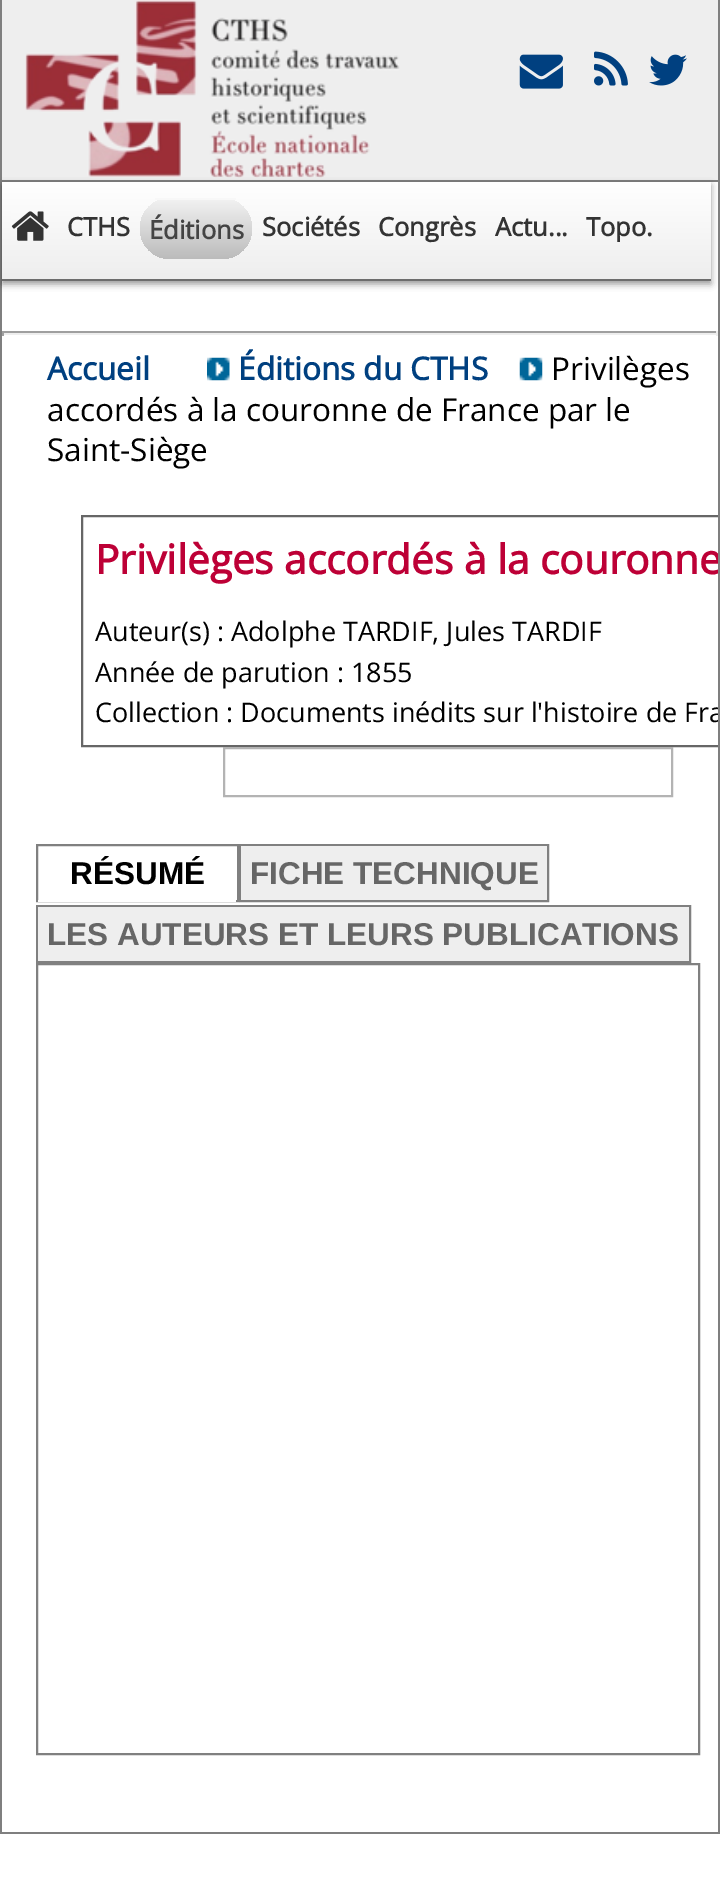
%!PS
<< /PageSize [720 1892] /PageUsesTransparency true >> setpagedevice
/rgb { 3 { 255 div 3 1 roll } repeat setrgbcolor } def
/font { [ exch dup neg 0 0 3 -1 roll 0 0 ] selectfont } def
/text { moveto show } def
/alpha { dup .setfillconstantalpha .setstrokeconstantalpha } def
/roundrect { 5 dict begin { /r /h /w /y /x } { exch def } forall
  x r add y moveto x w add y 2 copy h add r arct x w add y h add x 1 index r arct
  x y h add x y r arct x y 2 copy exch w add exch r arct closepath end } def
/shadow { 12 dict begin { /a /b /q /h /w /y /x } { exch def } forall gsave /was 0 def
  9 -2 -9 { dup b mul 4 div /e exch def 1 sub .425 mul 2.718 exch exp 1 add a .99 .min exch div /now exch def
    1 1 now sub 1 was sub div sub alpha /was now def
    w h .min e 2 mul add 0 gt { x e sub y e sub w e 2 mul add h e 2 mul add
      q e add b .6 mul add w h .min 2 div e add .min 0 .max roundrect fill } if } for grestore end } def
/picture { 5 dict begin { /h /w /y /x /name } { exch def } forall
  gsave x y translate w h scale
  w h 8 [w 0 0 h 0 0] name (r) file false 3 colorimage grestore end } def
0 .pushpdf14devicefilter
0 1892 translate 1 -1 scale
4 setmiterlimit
255 255 255 rgb
0 0 720 1892 rectfill
127 127 127 rgb
718 0 2 1834 rectfill
0 1832 720 2 rectfill
0 0 2 1834 rectfill
238 238 238 rgb
2 0 716 180 rectfill
127 127 127 rgb
2 180 716 2 rectfill
(img_01.rgb) 25 0 375 178 picture
(img_02.rgb) 519 54 44 35 picture
(img_03.rgb) 594 51 34 35 picture
(img_04.rgb) 649 54 38 32 picture
0 0 0 rgb
2 185 709 99 0 3.5 0.4 shadow
gsave 2 182 moveto 709 0 rlineto 0 97 rlineto -709 0 rlineto closepath clip newpath
<< /ShadingType 2 /ColorSpace /DeviceRGB /Coords [2.2 182 2.2 279] /Extend [true true] /Function << /FunctionType 2 /Domain [0 1] /C0 [1 1 1] /C1 [0.933 0.933 0.933] /N 1 >> >> shfill grestore
109 109 109 rgb
2 279 709 2 rectfill
(img_05.rgb) 11 211 38 30 picture
gsave
140 198 112 61 30.5 roundrect clip newpath
gsave 140 200 moveto 112 0 rlineto 0 28.5 rlineto 0 17 -13.5 30.5 -30.5 30.5 rcurveto -51 0 rlineto -17 0 -30.5 -13.5 -30.5 -30.5 rcurveto closepath clip newpath
<< /ShadingType 2 /ColorSpace /DeviceRGB /Coords [140 200 140 259] /Extend [true true] /Function << /FunctionType 2 /Domain [0 1] /C0 [0.945 0.945 0.945] /C1 [0.733 0.733 0.733] /N 1 >> >> shfill grestore
grestore
248 248 248 rgb
155 198 81 2 rectfill
159 159 159 rgb
2 331 716 2 rectfill
238 238 238 rgb
716 331 2 5 rectfill
2 333 716 2 rectfill
159 159 159 rgb
2 331 2 5 rectfill
(img_06.rgb) 207 357 23 24 picture
(img_07.rgb) 519 357 24 24 picture
gsave
2 349 716 1483 rectclip
102 102 102 rgb
2 setlinewidth
82 516 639 230 rectstroke
grestore
179 179 179 rgb
2 setlinewidth
224 748 448 48 rectstroke
128 128 128 rgb
37 845 201 56 rectstroke
255 255 255 rgb
38 900 198 2 rectfill
128 128 128 rgb
240 845 308 56 rectstroke
238 238 238 rgb
241 846 306 54 rectfill
128 128 128 rgb
37 906 653 56 rectstroke
238 238 238 rgb
38 907 651 54 rectfill
128 128 128 rgb
37 964 662 790 rectstroke
/OpenSans-Bold 25.5 font
51 51 51 rgb
(CTHS) 67 236 text
68 68 68 rgb
(Éditions) 149 239 text
51 51 51 rgb
(Sociétés) 262 236 text
(Congrès) 378 236 text
(Actu...) 495 236 text
(Topo.) 586 236 text
/OpenSans-Bold 31.5 font
0 64 128 rgb
(Accueil) 47 380 text
(Éditions du CTHS) 238 380 text
/OpenSans-Regular 31.5 font
0 0 0 rgb
(Privilèges) 551 380 text
(accordés à la couronne de France par le) 47 421 text
(Saint-Siège) 47 461 text
gsave
2 349 716 1483 rectclip
/OpenSans-Bold 40.5 font
189 0 54 rgb
(Privilèges accordés à la couronne) 95 574 text
grestore
/OpenSans-Regular 27 font
(Auteur\(s\) : Adolphe TARDIF, Jules TARDIF) 95 641 text
(Année de parution : 1855) 95 682 text
gsave
2 349 716 1483 rectclip
(Collection : Documents inédits sur l'histoire de Fra) 95 722 text
grestore
/LiberationSans-Bold 31.5 font
(RÉSUMÉ) 70 884 text
102 102 102 rgb
(FICHE TECHNIQUE) 250 884 text
(LES AUTEURS ET LEURS PUBLICATIONS) 47 945 text
.poppdf14devicefilter showpage
